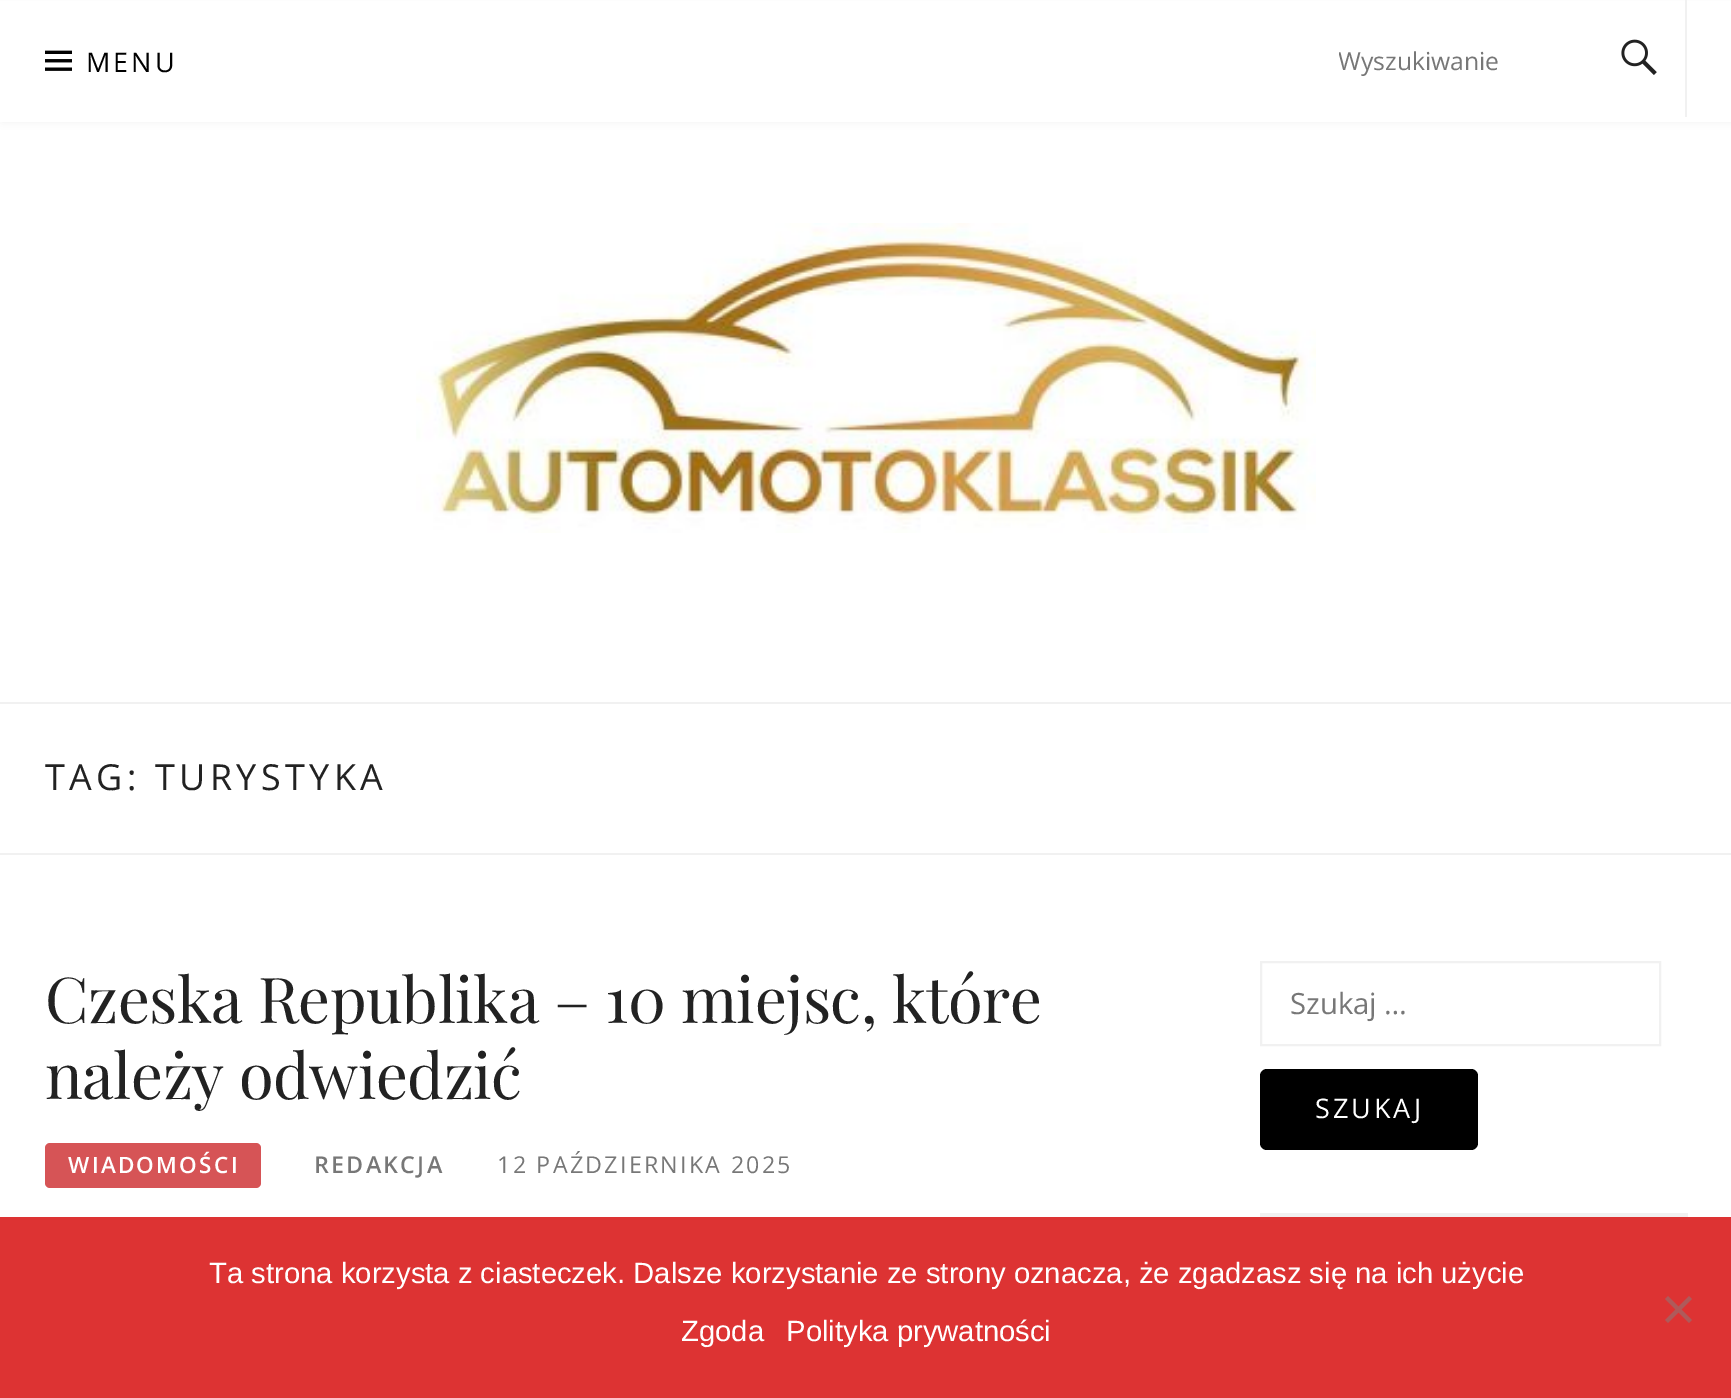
%!PS
<< /PageSize [1731 1398] /PageUsesTransparency true >> setpagedevice
/rgb { 3 { 255 div 3 1 roll } repeat setrgbcolor } def
/font { [ exch dup neg 0 0 3 -1 roll 0 0 ] selectfont } def
/text { moveto show } def
/alpha { dup .setfillconstantalpha .setstrokeconstantalpha } def
/roundrect { 5 dict begin { /r /h /w /y /x } { exch def } forall
  x r add y moveto x w add y 2 copy h add r arct x w add y h add x 1 index r arct
  x y h add x y r arct x y 2 copy exch w add exch r arct closepath end } def
/shadow { 12 dict begin { /a /b /q /h /w /y /x } { exch def } forall gsave /was 0 def
  9 -2 -9 { dup b mul 4 div /e exch def 1 sub .425 mul 2.718 exch exp 1 add a .99 .min exch div /now exch def
    1 1 now sub 1 was sub div sub alpha /was now def
    w h .min e 2 mul add 0 gt { x e sub y e sub w e 2 mul add h e 2 mul add
      q e add b .6 mul add w h .min 2 div e add .min 0 .max roundrect fill } if } for grestore end } def
/picture { 5 dict begin { /h /w /y /x /name } { exch def } forall
  gsave x y translate w h scale
  w h 8 [w 0 0 h 0 0] name (r) file false 3 colorimage grestore end } def
0 .pushpdf14devicefilter
0 1398 translate 1 -1 scale
4 setmiterlimit
255 255 255 rgb
0 0 1731 1398 rectfill
0 0 0 rgb
2 5 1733 117 0 4.5 0.05 shadow
255 255 255 rgb
0 1 1731 121 rectfill
(img_01.rgb) 45 50 27 21 picture
241 241 241 rgb
1685 0 2 117 rectfill
(img_02.rgb) 1621 39 36 36 picture
(img_03.rgb) 416 223 900 310 picture
0 702 1731 2 rectfill
0 853 1731 2 rectfill
214 84 86 rgb
45 1143 216 45 5 roundrect fill
241 241 241 rgb
2 setlinewidth
1261 962 399 83 rectstroke
0 0 0 rgb
1260 1069 218 81 7 roundrect fill
241 241 241 rgb
1260 1213 428 4 rectfill
221 51 51 rgb
0 1217 1731 181 rectfill
175 90 90 rgb
1689 1296 moveto 3 3 rlineto -24 24 rlineto -3 -3 rlineto closepath fill
1665 1299 moveto 3 -3 rlineto 24 24 rlineto -3 3 rlineto closepath fill
/OpenSans-Regular 27 font
0 0 0 rgb
86 72 moveto 3 0 (MENU) ashow
gsave
1339 43 270 34 rectclip
/OpenSans-Regular 24.75 font
119 119 119 rgb
(Wyszukiwanie) 1338 70 text
grestore
/OpenSans-Regular 35.9 font
34 34 34 rgb
45 790 moveto 4.5 0 (TAG: TURYSTYKA) ashow
/PlayfairDisplay-Regular 63.25 font
45 1023 moveto -0.45 0 (Czeska Republika – 10 miejsc, które) ashow
45 1099 moveto -0.45 0 (należy odwiedzić) ashow
/OpenSans-SemiBold 22.5 font
255 255 255 rgb
68 1173 moveto 2.25 0 (WIADOMOŚCI) ashow
/OpenSans-SemiBold 23.25 font
119 119 119 rgb
314 1173 moveto 2.25 0 (REDAKCJA) ashow
/OpenSans-Regular 23.25 font
497 1173 moveto 2.25 0 (12 PAŹDZIERNIKA 2025) ashow
/OpenSans-Regular 29.25 font
(Szukaj …) 1290 1014 text
/OpenSans-Regular 27 font
255 255 255 rgb
1315 1118 moveto 3 0 (SZUKAJ) ashow
/LiberationSans-Regular 29.25 font
(Ta strona korzysta z ciasteczek. Dalsze korzystanie ze strony oznacza, że zgadzasz się na ich użycie) 209 1283 text
(Zgoda) 681 1341 text
(Polityka prywatności) 786 1341 text
.poppdf14devicefilter showpage
